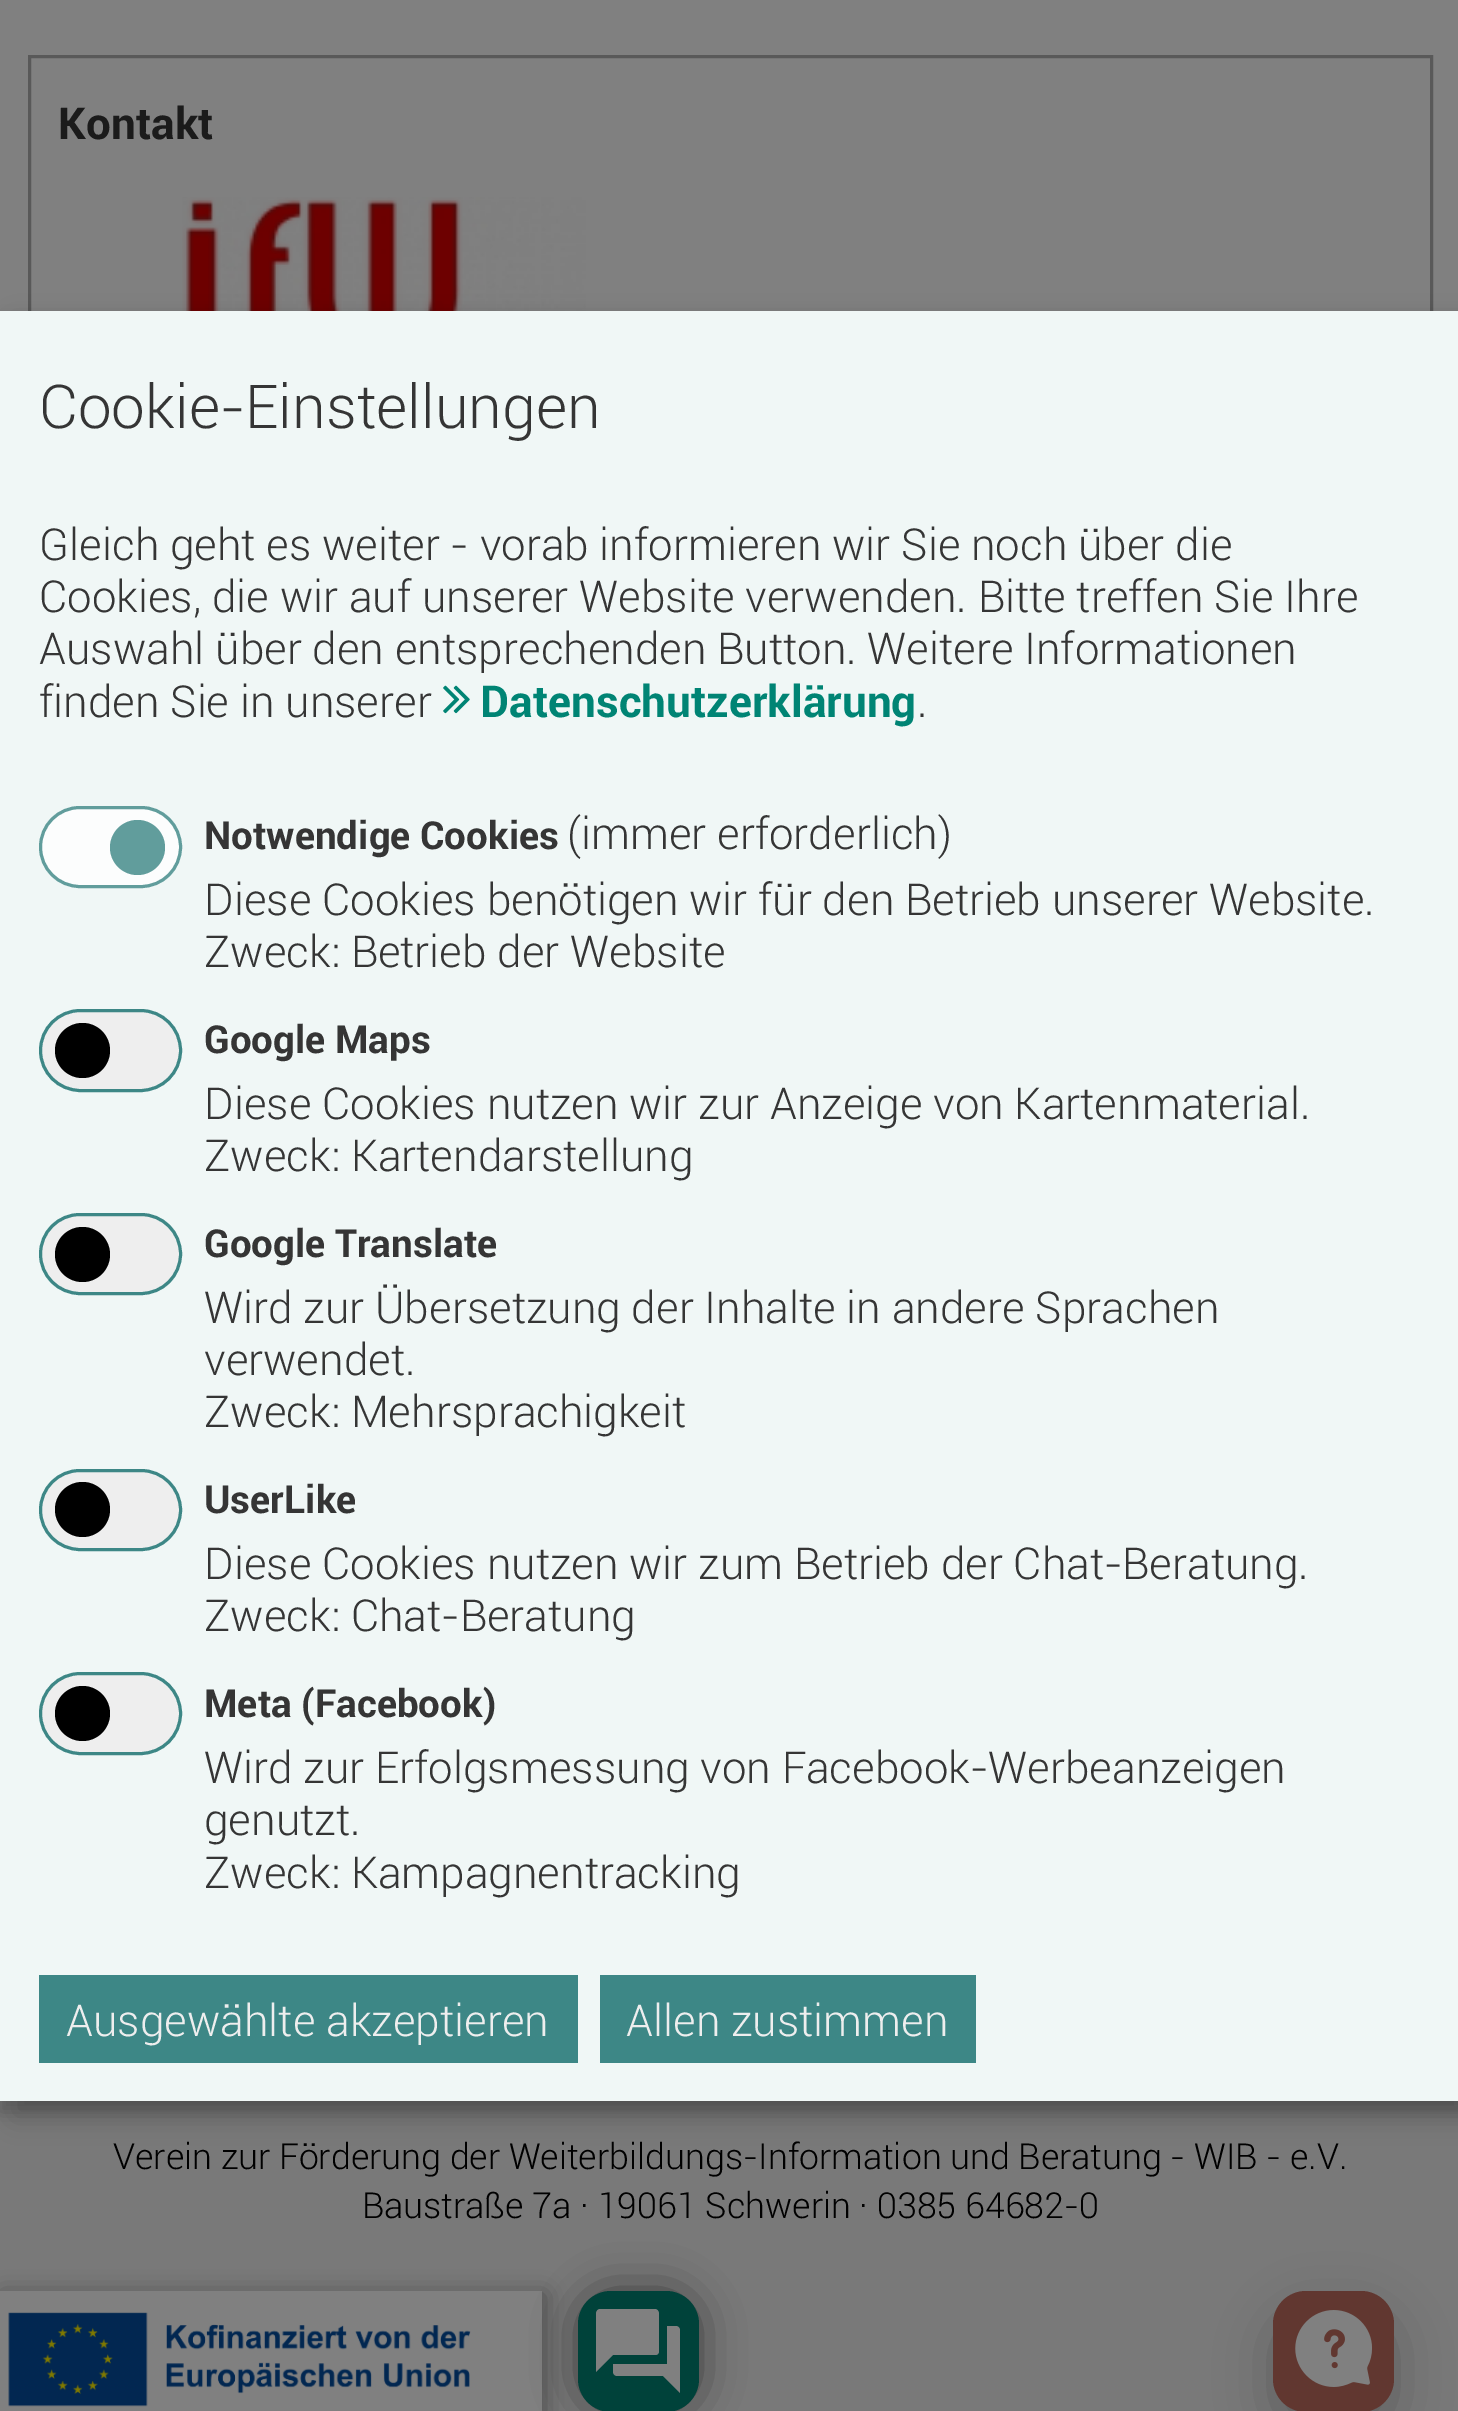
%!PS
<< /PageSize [1458 2411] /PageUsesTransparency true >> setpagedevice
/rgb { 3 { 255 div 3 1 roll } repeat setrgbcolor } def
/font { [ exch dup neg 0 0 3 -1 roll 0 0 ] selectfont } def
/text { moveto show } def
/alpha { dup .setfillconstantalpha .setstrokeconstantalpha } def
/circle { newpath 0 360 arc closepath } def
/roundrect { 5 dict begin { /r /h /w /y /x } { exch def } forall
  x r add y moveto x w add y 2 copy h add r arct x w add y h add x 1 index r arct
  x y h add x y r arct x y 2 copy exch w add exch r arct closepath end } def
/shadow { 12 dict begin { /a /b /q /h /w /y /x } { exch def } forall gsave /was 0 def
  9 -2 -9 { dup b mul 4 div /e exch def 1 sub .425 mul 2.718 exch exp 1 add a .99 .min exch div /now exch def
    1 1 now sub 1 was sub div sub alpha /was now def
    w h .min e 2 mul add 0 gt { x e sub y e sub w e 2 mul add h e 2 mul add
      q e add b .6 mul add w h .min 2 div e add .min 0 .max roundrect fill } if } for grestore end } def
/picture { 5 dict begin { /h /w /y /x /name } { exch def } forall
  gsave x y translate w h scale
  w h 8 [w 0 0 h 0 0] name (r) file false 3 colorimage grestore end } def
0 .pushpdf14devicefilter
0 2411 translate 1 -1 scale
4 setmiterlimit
128 128 128 rgb
0 0 1458 2411 rectfill
89 89 89 rgb
3 setlinewidth
29.5 56.5 1402 1306 rectstroke
(img_01.rgb) 182 197 404 114 picture
121 121 121 rgb
0 2101 1458 310 rectfill
77 77 77 rgb
3 2294 542 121 0 11 1 shadow
128 128 128 rgb
0 2291 542 120 rectfill
(img_02.rgb) 8 2312 463 95 picture
0 0 0 rgb
14 325 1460 1790 0 14 0.19 shadow
0 322 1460 1790 0 8 0.2 shadow
240 247 246 rgb
0 311 1458 1790 rectfill
(img_03.rgb) 443 685 27 29 picture
252 253 253 rgb
40.5 807.5 140 79 39.5 roundrect gsave fill grestore
97 157 156 rgb
stroke
137.5 847.5 27.5 circle fill
238 238 238 rgb
40.5 1010.5 140 80 40 roundrect gsave fill grestore
61 135 134 rgb
stroke
0 0 0 rgb
82.5 1050.5 27.5 circle fill
238 238 238 rgb
40.5 1214.5 140 79 39.5 roundrect gsave fill grestore
61 135 134 rgb
stroke
0 0 0 rgb
82.5 1254.5 27.5 circle fill
238 238 238 rgb
40.5 1470.5 140 79 39.5 roundrect gsave fill grestore
61 135 134 rgb
stroke
0 0 0 rgb
82.5 1509.5 27.5 circle fill
238 238 238 rgb
40.5 1673.5 140 80 40 roundrect gsave fill grestore
61 135 134 rgb
stroke
0 0 0 rgb
82.5 1713.5 27.5 circle fill
61 135 134 rgb
39 1975 539 88 rectfill
600 1975 376 88 rectfill
0 0 0 rgb
578 2291 121 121 33 22 0.5 shadow
0 66 58 rgb
578 2291 121 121 33 roundrect fill
128 128 128 rgb
676 2326 moveto -9 0 rlineto 0 38 rlineto -54 0 rlineto 0 8 rlineto 0 2 2 4 4 4 rcurveto 46 0 rlineto 17 17 rlineto 0 -63 rlineto 0 -2 -2 -4 -4 -4 rcurveto closepath eofill
659 2351 moveto 0 -37 rlineto 0 -3 -2 -5 -4 -5 rcurveto -55 0 rlineto -2 0 -4 2 -4 5 rcurveto 0 58 rlineto 17 -17 rlineto 42 0 rlineto 2 0 4 -1 4 -4 rcurveto closepath eofill
0 0 0 rgb
1273 2313 121 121 33 27.5 0.24 shadow
97 55 48 rgb
1273 2291 121 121 33 roundrect fill
(img_04.rgb) 1295 2310 77 77 picture
/Roboto-Bold 44 font
27 27 27 rgb
(Kontakt) 58 139 text
/Roboto-Light 35.75 font
0 0 0 rgb
(Verein zur Förderung der Weiterbildungs-Information und Beratung - WIB - e.V.) 113 2169 text
(Baustraße 7a · 19061 Schwerin · 0385 64682-0) 362 2218 text
/Roboto-Light 60.5 font
53 53 53 rgb
(Cookie-Einstellungen) 39 428 text
/Roboto-Light 44 font
(Gleich geht es weiter - vorab informieren wir Sie noch über die) 39 560 text
(Cookies, die wir auf unserer Website verwenden. Bitte treffen Sie Ihre) 39 612 text
(Auswahl über den entsprechenden Button. Weitere Informationen) 39 664 text
(finden Sie in unserer) 39 717 text
/Roboto-Bold 44 font
0 132 116 rgb
(Datenschutzerklärung) 480 717 text
/Roboto-Light 44 font
53 53 53 rgb
(.) 917 717 text
/Roboto-Bold 38.5 font
(Notwendige Cookies) 204 849 text
/Roboto-Light 44 font
(\(immer erforderlich\)) 567 849 text
(Diese Cookies benötigen wir für den Betrieb unserer Website.) 204 915 text
(Zweck: Betrieb der Website) 204 967 text
/Roboto-Bold 38.5 font
(Google Maps) 204 1053 text
/Roboto-Light 44 font
(Diese Cookies nutzen wir zur Anzeige von Kartenmaterial.) 204 1119 text
(Zweck: Kartendarstellung) 204 1171 text
/Roboto-Bold 38.5 font
(Google Translate) 204 1257 text
/Roboto-Light 44 font
(Wird zur Übersetzung der Inhalte in andere Sprachen) 204 1323 text
(verwendet.) 204 1375 text
(Zweck: Mehrsprachigkeit) 204 1427 text
/Roboto-Bold 38.5 font
(UserLike) 204 1513 text
/Roboto-Light 44 font
(Diese Cookies nutzen wir zum Betrieb der Chat-Beratung.) 204 1579 text
(Zweck: Chat-Beratung) 204 1631 text
/Roboto-Bold 38.5 font
(Meta \(Facebook\)) 204 1717 text
/Roboto-Light 44 font
(Wird zur Erfolgsmessung von Facebook-Werbeanzeigen) 204 1783 text
(genutzt.) 204 1835 text
(Zweck: Kampagnentracking) 204 1888 text
238 238 238 rgb
(Ausgewählte akzeptieren) 66 2036 text
(Allen zustimmen) 626 2036 text
.poppdf14devicefilter showpage
